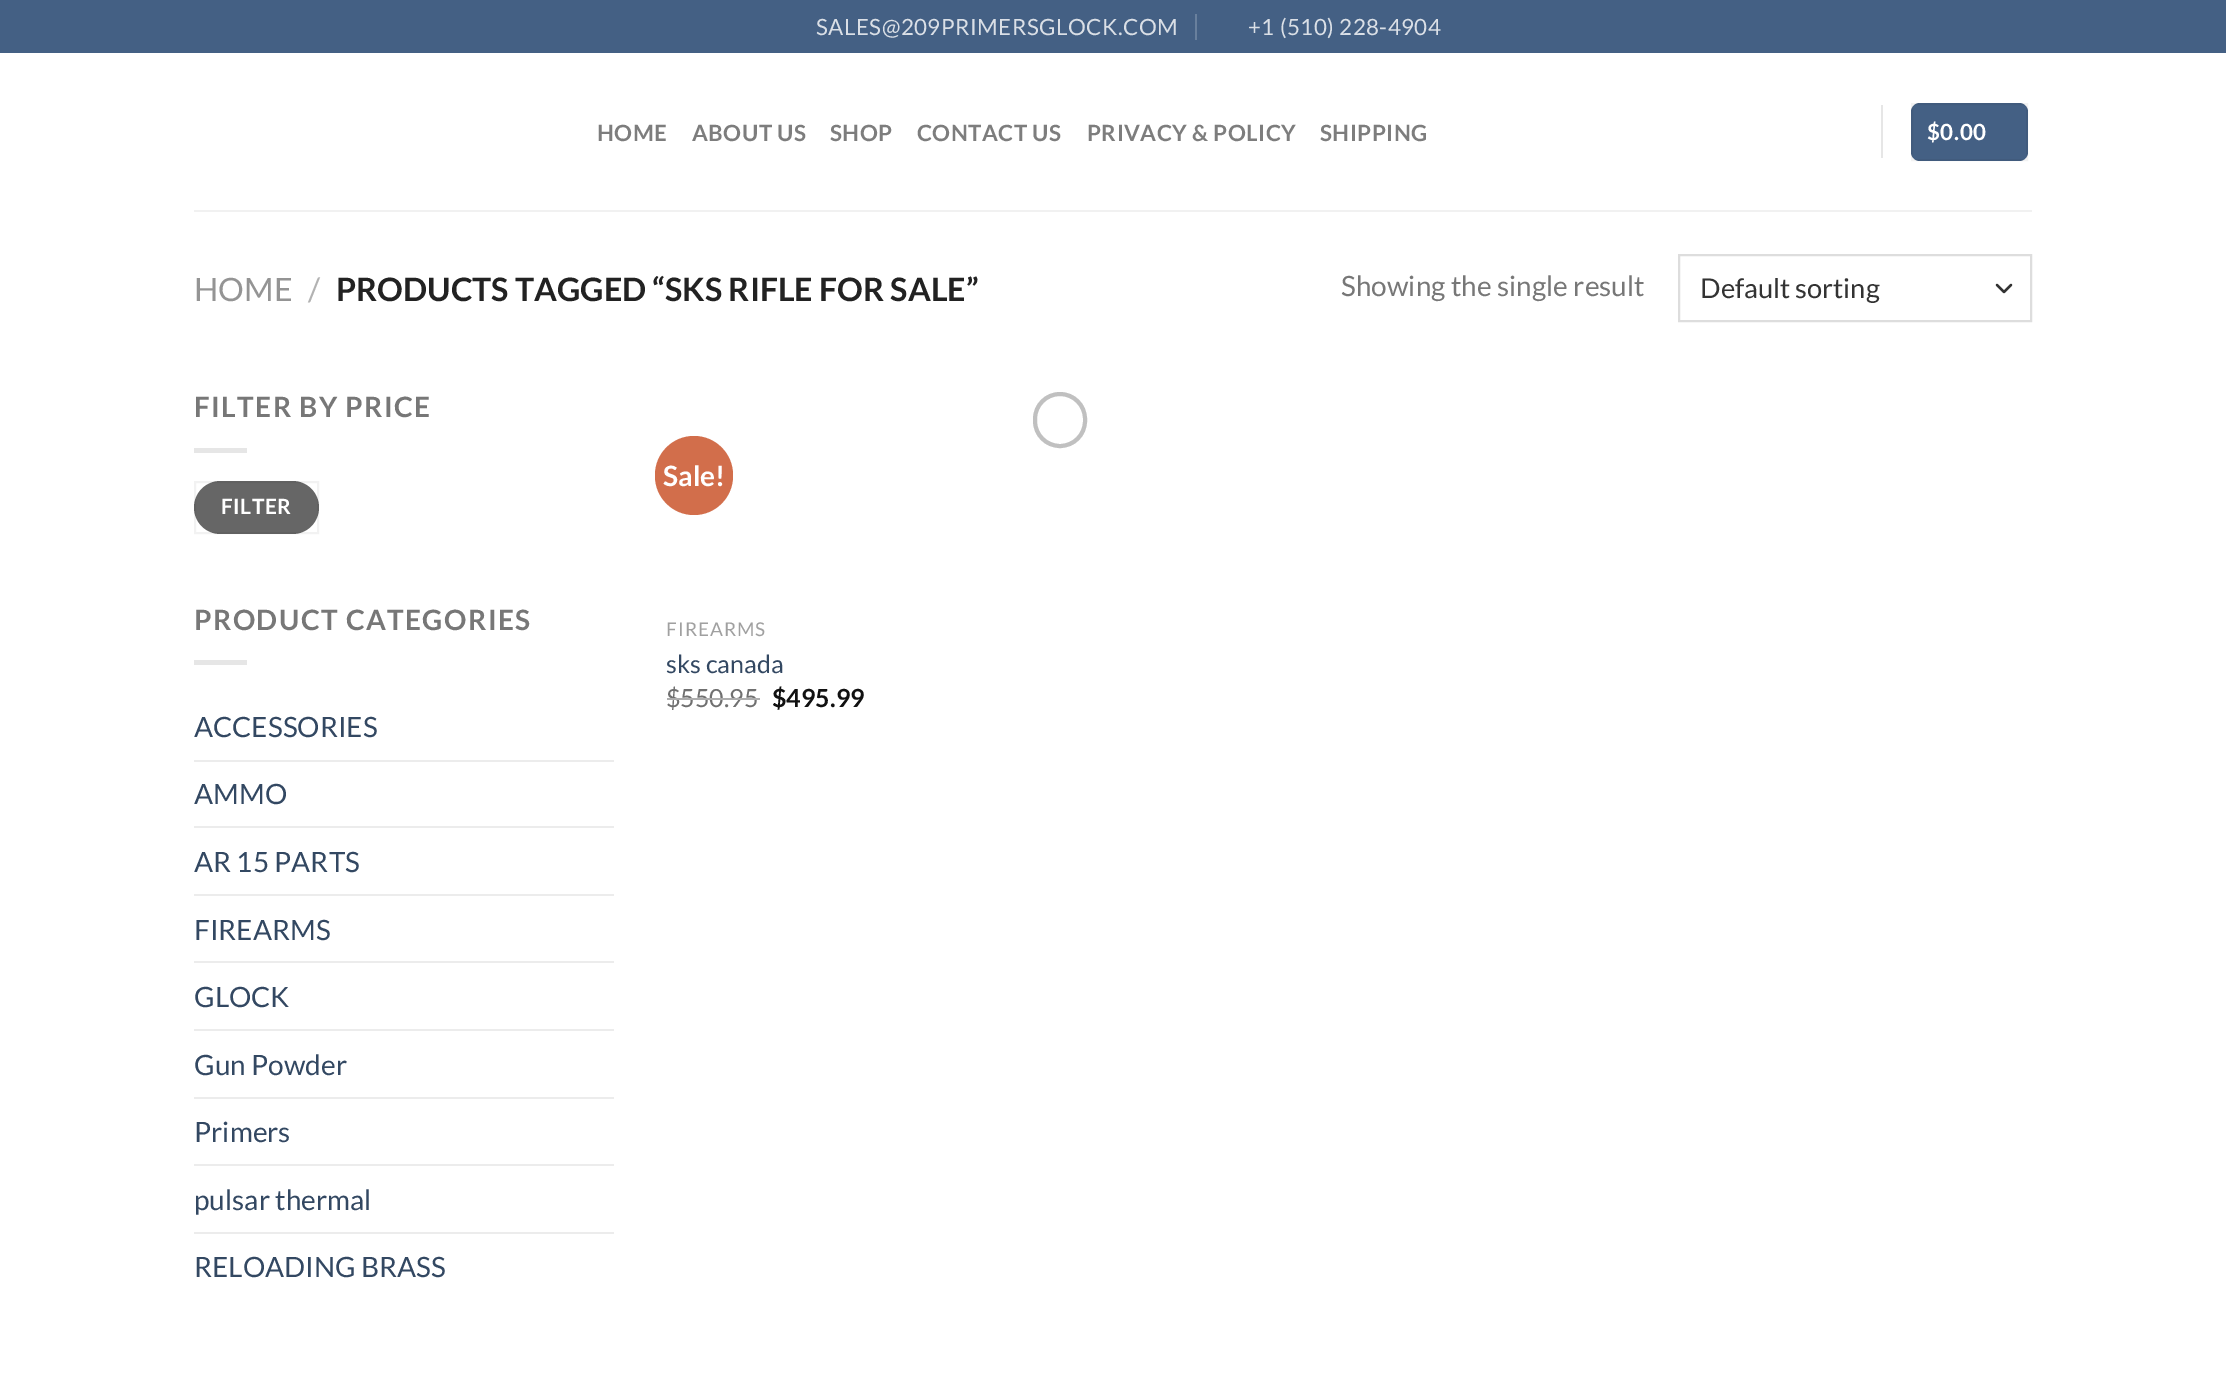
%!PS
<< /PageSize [2226 1373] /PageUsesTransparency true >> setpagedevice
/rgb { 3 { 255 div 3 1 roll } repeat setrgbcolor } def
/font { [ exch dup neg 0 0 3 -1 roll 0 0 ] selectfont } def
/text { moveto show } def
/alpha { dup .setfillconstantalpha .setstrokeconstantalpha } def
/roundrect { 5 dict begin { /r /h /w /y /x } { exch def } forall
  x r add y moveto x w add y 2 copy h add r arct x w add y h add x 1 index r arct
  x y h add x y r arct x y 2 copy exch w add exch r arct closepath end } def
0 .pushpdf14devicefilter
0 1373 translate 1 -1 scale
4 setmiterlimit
255 255 255 rgb
0 0 2226 1373 rectfill
68 96 132 rgb
0 0 2226 53 rectfill
105 128 157 rgb
1195 14 2 26 rectfill
230 230 230 rgb
1881 105 2 53 rectfill
68 96 132 rgb
1911 103 117 58 9 roundrect fill
0.05 alpha
0 0 0 rgb
2 setlinewidth
1912 104 115 56 rectstroke
1 alpha
241 241 241 rgb
194 210 1838 2 rectfill
51 51 51 rgb
2.3 setlinewidth
1 setlinecap
1 setlinejoin
1997 285 moveto 7 7 rlineto 7 -7 rlineto stroke
221 221 221 rgb
2 setlinewidth
0 setlinecap
0 setlinejoin
1679 255 352 66 rectstroke
230 230 230 rgb
194 448 53 5 rectfill
102 102 102 rgb
194 481 125 53 26.5 roundrect fill
0.05 alpha
0 0 0 rgb
195 482 123 51 rectstroke
1 alpha
230 230 230 rgb
194 660 53 5 rectfill
236 236 236 rgb
194 760 420 2 rectfill
194 826 420 2 rectfill
194 894 420 2 rectfill
194 961 420 2 rectfill
194 1029 420 2 rectfill
194 1097 420 2 rectfill
194 1164 420 2 rectfill
194 1232 420 2 rectfill
210 110 75 rgb
655 436 78 79 39 roundrect fill
192 192 192 rgb
4 setlinewidth
1035 394 50 52 25 roundrect stroke
/Lato-Regular 22.4 font
218 223 230 rgb
816 35 moveto 0.45 0 (SALES@209PRIMERSGLOCK.COM) ashow
1248 35 moveto 0.45 0 (+1 \(510\) 228-4904) ashow
/Lato-Bold 22.4 font
125 125 125 rgb
597 141 moveto 0.45 0 (HOME) ashow
692 141 moveto 0.45 0 (ABOUT US) ashow
830 141 moveto 0.45 0 (SHOP) ashow
917 141 moveto 0.45 0 (CONTACT US) ashow
1087 141 moveto 0.45 0 (PRIVACY & POLICY) ashow
1320 141 moveto 0.45 0 (SHIPPING) ashow
255 255 255 rgb
1927 140 moveto 0.5 0 ($0.00) ashow
/Lato-Regular 32.25 font
148 148 148 rgb
(HOME) 194 301 text
178 178 178 rgb
(/) 308 301 text
/Lato-Bold 32.25 font
34 34 34 rgb
(PRODUCTS TAGGED “SKS RIFLE FOR SALE”) 336 301 text
/Lato-Regular 28 font
119 119 119 rgb
(Showing the single result) 1341 296 text
/Lato-Regular 27.25 font
51 51 51 rgb
(Default sorting) 1700 298 text
/Lato-Bold 28 font
119 119 119 rgb
194 417 moveto 1.4 0 (FILTER BY PRICE) ashow
/Lato-Bold 21 font
255 255 255 rgb
221 514 moveto 0.5 0 (FILTER) ashow
/Lato-Bold 28 font
119 119 119 rgb
194 630 moveto 1.4 0 (PRODUCT CATEGORIES) ashow
/Lato-Regular 28 font
51 72 98 rgb
(ACCESSORIES) 194 737 text
(AMMO) 194 804 text
(AR 15 PARTS) 194 872 text
(FIREARMS) 194 940 text
(GLOCK) 194 1007 text
(Gun Powder) 194 1075 text
(Primers) 194 1142 text
(pulsar thermal) 194 1210 text
(RELOADING BRASS) 194 1277 text
/Lato-Bold 28 font
255 255 255 rgb
(Sale!) 663 486 text
/Lato-Regular 19 font
160 160 160 rgb
666 636 moveto 1 0 (FIREARMS) ashow
/Lato-Regular 25 font
51 72 98 rgb
(sks canada) 666 673 text
112 112 112 rgb
($550.95) 666 707 text
173 173 173 rgb
667 698 93 2 rectfill
/Lato-Bold 25 font
17 17 17 rgb
($495.99) 772 707 text
.poppdf14devicefilter showpage
